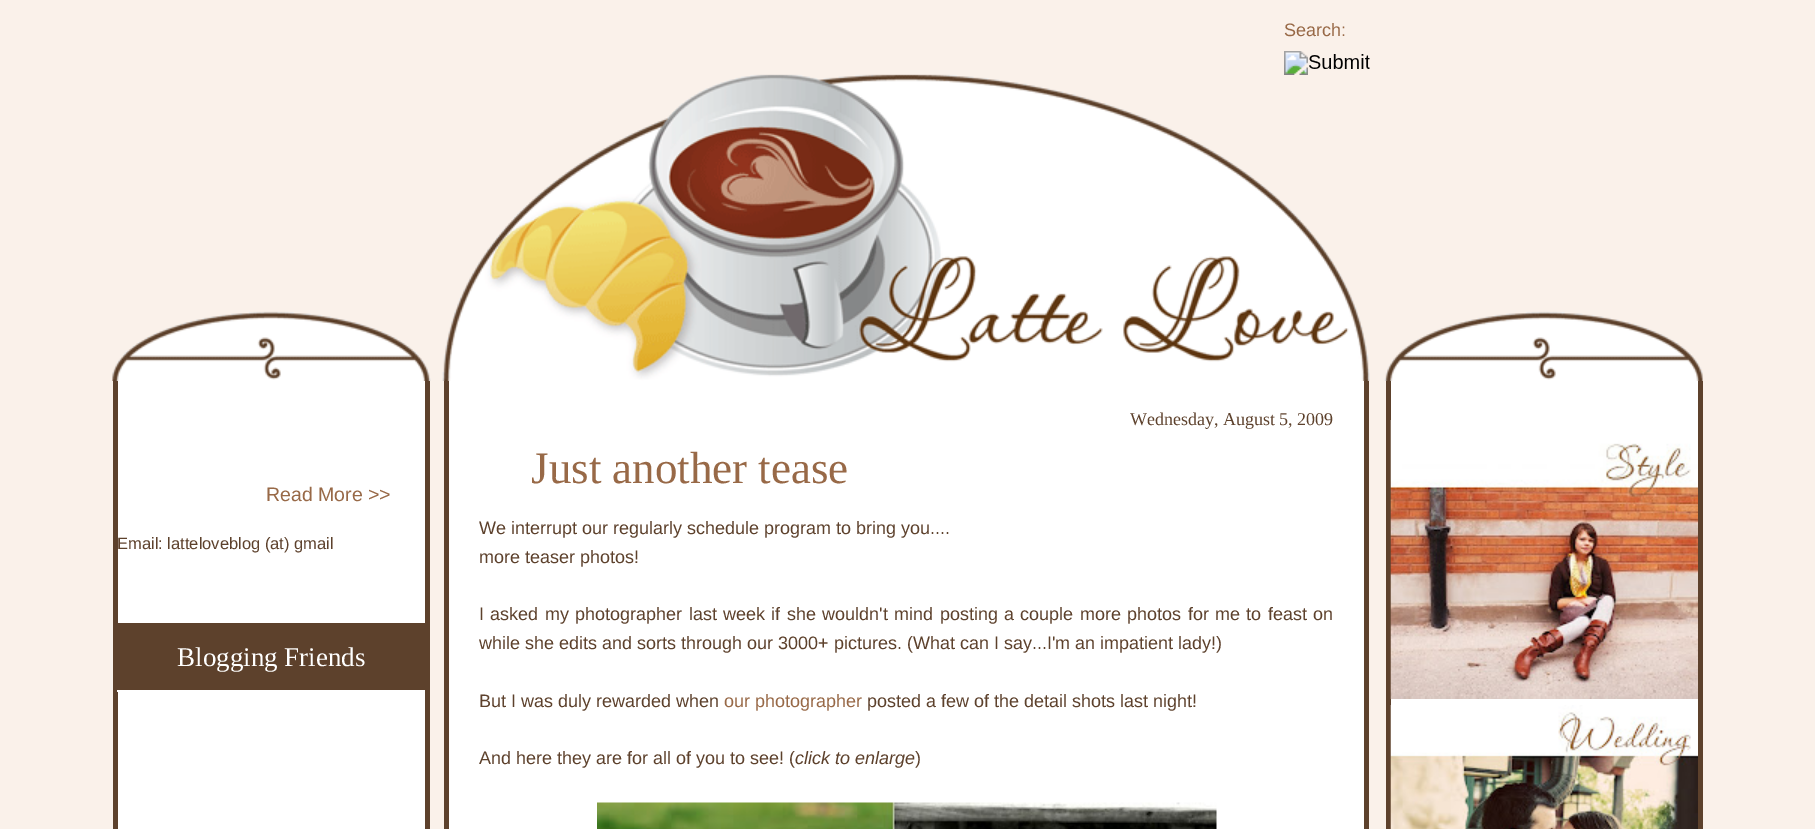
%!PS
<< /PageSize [1815 829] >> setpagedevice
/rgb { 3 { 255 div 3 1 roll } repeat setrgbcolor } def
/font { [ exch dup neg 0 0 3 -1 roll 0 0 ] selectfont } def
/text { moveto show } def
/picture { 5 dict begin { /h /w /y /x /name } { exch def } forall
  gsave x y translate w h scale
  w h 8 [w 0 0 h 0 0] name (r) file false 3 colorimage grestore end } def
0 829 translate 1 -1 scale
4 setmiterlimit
250 241 234 rgb
0 0 1815 829 rectfill
(img_02.rgb) 112 74 1591 307 picture
(img_01.rgb) 1284 51 86 24 picture
255 255 255 rgb
118 381 307 448 rectfill
93 65 44 rgb
425 381 5 448 rectfill
113 381 5 448 rectfill
118 623 307 67 rectfill
255 255 255 rgb
117 690 1 2 rectfill
449 381 915 448 rectfill
93 65 44 rgb
1364 381 5 448 rectfill
444 381 5 448 rectfill
(img_03.rgb) 597 802 620 27 picture
255 255 255 rgb
1391 381 307 324 rectfill
93 65 44 rgb
1698 381 5 448 rectfill
1386 381 5 448 rectfill
(img_04.rgb) 1390 420 308 279 picture
(img_05.rgb) 1390 705 308 124 picture
/LiberationSans-Regular 18 font
152 105 71 rgb
(Search:) 1284 36 text
/LiberationSans-Regular 19.5 font
(Read More >>) 266 501 text
/LiberationSans-Regular 16.5 font
93 65 44 rgb
(Email: latteloveblog \(at\) gmail) 117 549 text
/LiberationSerif-Regular 27 font
255 255 255 rgb
(Blogging Friends) 177 666 text
/LiberationSerif-Regular 18 font
93 65 44 rgb
(Wednesday, August 5, 2009) 1130 425 text
/LiberationSerif-Regular 45 font
152 105 71 rgb
(Just another tease) 531 483 text
/LiberationSans-Regular 18 font
93 65 44 rgb
(We interrupt our regularly schedule program to bring you....) 479 534 text
(more teaser photos!) 479 563 text
479 620 moveto 1.4 0 32 (I asked my photographer last week if she wouldn't mind posting a couple more photos for me to feast on) widthshow
(while she edits and sorts through our 3000+ pictures. \(What can I say...I'm an impatient lady!\)) 479 649 text
(But I was duly rewarded when) 479 707 text
152 105 71 rgb
(our photographer) 724 707 text
93 65 44 rgb
(posted a few of the detail shots last night!) 867 707 text
(And here they are for all of you to see! \() 479 764 text
/LiberationSans-Italic 18 font
(click to enlarge) 795 764 text
/LiberationSans-Regular 18 font
(\)) 915 764 text
showpage
